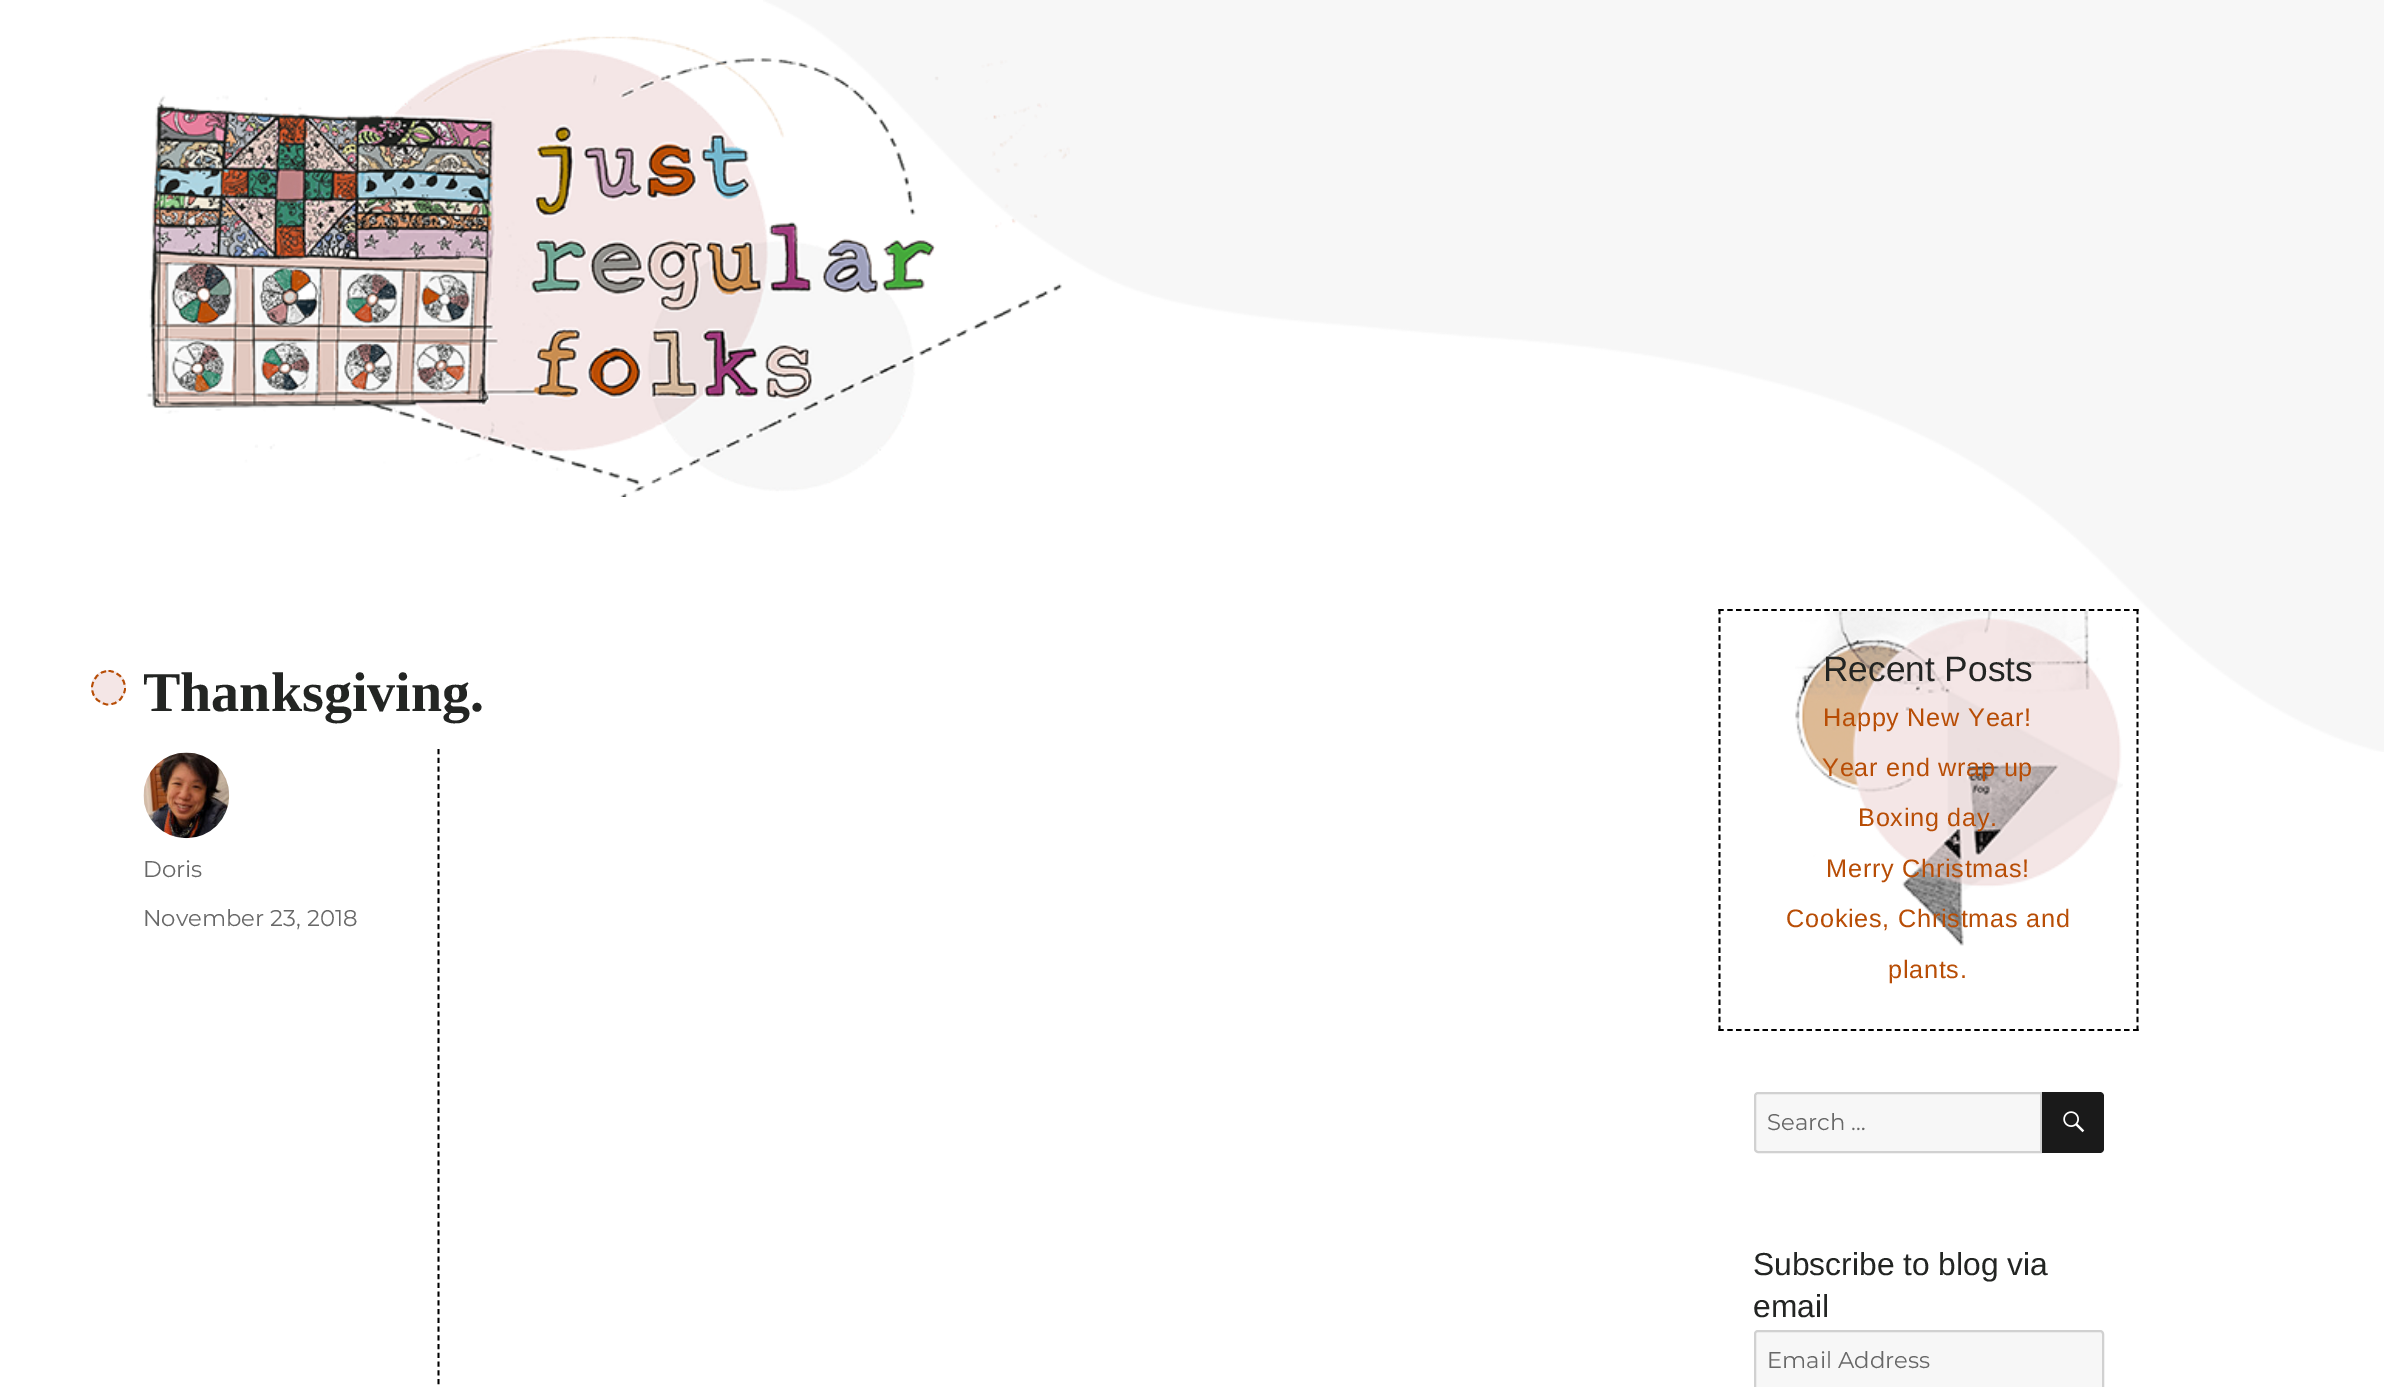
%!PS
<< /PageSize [2384 1387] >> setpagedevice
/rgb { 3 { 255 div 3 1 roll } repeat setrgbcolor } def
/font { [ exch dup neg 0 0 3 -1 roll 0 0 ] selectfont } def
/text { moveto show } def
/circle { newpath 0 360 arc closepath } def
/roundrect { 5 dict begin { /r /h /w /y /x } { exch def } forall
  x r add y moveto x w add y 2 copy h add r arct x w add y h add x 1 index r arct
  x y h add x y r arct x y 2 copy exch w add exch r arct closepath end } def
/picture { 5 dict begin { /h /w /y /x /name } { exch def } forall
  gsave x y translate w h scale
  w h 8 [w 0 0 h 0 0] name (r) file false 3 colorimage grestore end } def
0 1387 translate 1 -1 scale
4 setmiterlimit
255 255 255 rgb
0 0 2384 1387 rectfill
(img_01.rgb) 763 0 1621 752 picture
(img_02.rgb) 146 36 924 461 picture
244 230 230 rgb
108.5 687.5 17.5 circle fill
183 77 5 rgb
1.8 setlinewidth
[5.25 3.5] 0 setdash
108.5 671 moveto 9 0 16.5 7.5 16.5 17 rcurveto 0 9 -7.5 16.5 -16.5 16.5 rcurveto -9 0 -16.5 -7.5 -16.5 -16.5 rcurveto 0 -9.5 7.5 -17 16.5 -17 rcurveto closepath stroke
(img_03.rgb) 143 752 87 87 picture
0 0 0 rgb
438.5 749 moveto 0 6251 rlineto stroke
(img_04.rgb) 1795 610 328 336 picture
[5.25 3.57] 0 setdash
1718.5 610 moveto 420 0 rlineto stroke
[5.25 3.43] 0 setdash
2137.5 609 moveto 0 422 rlineto stroke
[5.25 3.57] 0 setdash
1718.5 1030 moveto 420 0 rlineto stroke
[5.25 3.43] 0 setdash
1719.5 609 moveto 0 422 rlineto stroke
247 247 247 rgb
1758 1093 moveto 283 0 rlineto 0 59 rlineto -283 0 rlineto -1.5 0 -3 -1.5 -3 -3 rcurveto 0 -53 rlineto 0 -1.5 1.5 -3 3 -3 rcurveto closepath gsave fill grestore
209 209 209 rgb
2 setlinewidth
[] 0 setdash
stroke
26 26 26 rgb
2042 1092 moveto 58 0 rlineto 2 0 4 2 4 4 rcurveto 0 53 rlineto 0 2 -2 4 -4 4 rcurveto -58 0 rlineto closepath fill
(img_05.rgb) 2063 1111 22 22 picture
247 247 247 rgb
1755 1331 348 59 3 roundrect gsave fill grestore
209 209 209 rgb
stroke
/LiberationSerif-Bold 56 font
35 37 35 rgb
(Thanksgiving.) 143 711 text
/Montserrat-Thin 22.75 font
104 104 104 rgb
(Doris) 143 877 text
(November 23, 2018) 143 926 text
/LiberationSans-Regular 35.25 font
35 37 35 rgb
(Recent Posts) 1823 681 text
/LiberationSans-Regular 25.25 font
184 77 5 rgb
1823 726 moveto 0.75 0 (Happy New Year!) ashow
1822 776 moveto 0.75 0 (Year end wrap up) ashow
1858 826 moveto 0.75 0 (Boxing day.) ashow
1826 877 moveto 0.75 0 (Merry Christmas!) ashow
1786 927 moveto 0.75 0 (Cookies, Christmas and) ashow
1888 978 moveto 0.75 0 (plants.) ashow
/Montserrat-Thin 22.75 font
104 104 104 rgb
(Search …) 1767 1130 text
/LiberationSans-Regular 31.75 font
35 37 35 rgb
(Subscribe to blog via) 1753 1275 text
(email) 1753 1317 text
/Montserrat-Thin 22.75 font
104 104 104 rgb
(Email Address) 1767 1368 text
showpage
